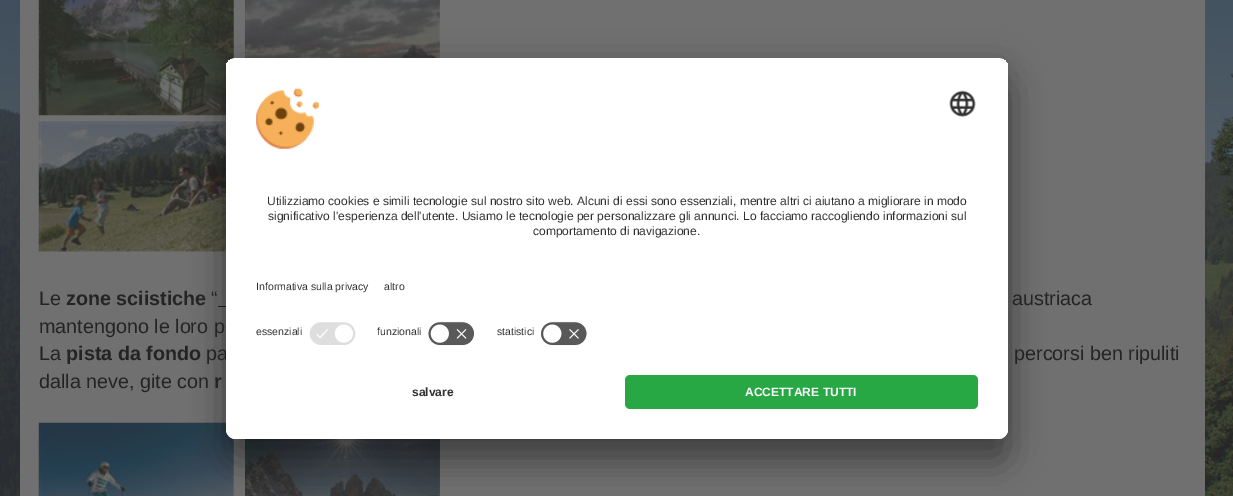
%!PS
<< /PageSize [1233 496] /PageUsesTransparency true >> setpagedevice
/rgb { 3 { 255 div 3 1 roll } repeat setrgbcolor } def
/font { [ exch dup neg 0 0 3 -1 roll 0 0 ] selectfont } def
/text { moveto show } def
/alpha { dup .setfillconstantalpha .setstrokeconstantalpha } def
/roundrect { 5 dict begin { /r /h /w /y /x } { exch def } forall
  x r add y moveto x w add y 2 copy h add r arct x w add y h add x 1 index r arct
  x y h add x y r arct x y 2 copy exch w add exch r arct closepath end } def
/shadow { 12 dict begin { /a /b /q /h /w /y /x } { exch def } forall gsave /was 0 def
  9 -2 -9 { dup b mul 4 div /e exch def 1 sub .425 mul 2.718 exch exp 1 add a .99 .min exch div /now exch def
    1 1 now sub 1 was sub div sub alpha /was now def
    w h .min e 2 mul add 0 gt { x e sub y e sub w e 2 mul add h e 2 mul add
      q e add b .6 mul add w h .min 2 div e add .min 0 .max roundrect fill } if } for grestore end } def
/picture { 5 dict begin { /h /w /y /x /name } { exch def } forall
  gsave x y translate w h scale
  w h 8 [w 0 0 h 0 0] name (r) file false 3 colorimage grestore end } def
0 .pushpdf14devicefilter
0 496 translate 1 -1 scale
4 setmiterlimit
255 255 255 rgb
0 0 1233 496 rectfill
(img_06.rgb) 0 0 1233 496 picture
112 112 112 rgb
20 0 1185 496 rectfill
(img_07.rgb) 38 0 196 116 picture
(img_08.rgb) 245 0 195 58 picture
(img_09.rgb) 38 121 188 131 picture
36 36 36 rgb
218 306 8 1 rectfill
(img_10.rgb) 38 422 196 74 picture
(img_11.rgb) 245 439 195 57 picture
0 0 0 rgb
226 83 782 381 10 17.5 0.3 shadow
226 64 782 381 10 16 0.22 shadow
/LiberationSans-Regular 19.75 font
36 36 36 rgb
(Le) 39 305 text
/LiberationSans-Bold 19.75 font
(zone sciistiche) 66 305 text
/LiberationSans-Regular 19.75 font
(“) 211 305 text
(austriaca) 1012 305 text
(mantengono le loro pr) 39 333 text
(La) 39 360 text
/LiberationSans-Bold 19.75 font
(pista da fondo) 66 360 text
/LiberationSans-Regular 19.75 font
(pa) 206 360 text
255 255 255 rgb
226 58 782 381 10 roundrect fill
gsave
226 58 782 381 10 roundrect clip newpath
236 58 moveto 762 0 rlineto 5.5 0 10 4.5 10 10 rcurveto 0 297 rlineto -782 0 rlineto 0 -297 rlineto 0 -5.5 4.5 -10 10 -10 rcurveto closepath clip newpath
226 59 782 306 rectfill
226 59 782 256 rectfill
grestore
(img_02.rgb) 949 90 27 27 picture
/LiberationSans-Regular 10.5 font
48 48 48 rgb
(Informativa sulla privacy) 256 290 text
(img_01.rgb) 256 88 64 61 picture
(img_05.rgb) 540 321 48 25 picture
(img_04.rgb) 427 321 48 25 picture
(img_03.rgb) 309 322 47 23 picture
/LiberationSans-Regular 12.03 font
(comportamento di navigazione.) 533 235 text
(significativo l'esperienza dell'utente. Usiamo le tecnologie per personalizzare gli annunci. Lo facciamo raccogliendo informazioni sul) 268 220 text
(Utilizziamo cookies e simili tecnologie sul nostro sito web. Alcuni di essi sono essenziali, mentre altri ci aiutano a migliorare in modo) 267 205 text
/LiberationSans-Regular 10.5 font
(statistici) 497 335 text
(funzionali) 377 335 text
(essenziali) 256 335 text
(altro) 384 290 text
255 255 255 rgb
226 365 moveto 782 0 rlineto 0 64 rlineto 0 5.5 -4.5 10 -10 10 rcurveto -762 0 rlineto -5.5 0 -10 -4.5 -10 -10 rcurveto closepath fill
40 167 69 rgb
625 375 353 34 5 roundrect fill
/LiberationSans-Bold 12.03 font
250 250 250 rgb
(ACCETTARE TUTTI) 745 396 text
48 48 48 rgb
(salvare) 412 396 text
/LiberationSans-Regular 19.75 font
36 36 36 rgb
(percorsi ben ripuliti) 1014 360 text
(dalla neve, gite con) 39 388 text
/LiberationSans-Bold 19.75 font
(r) 214 388 text
.poppdf14devicefilter showpage
